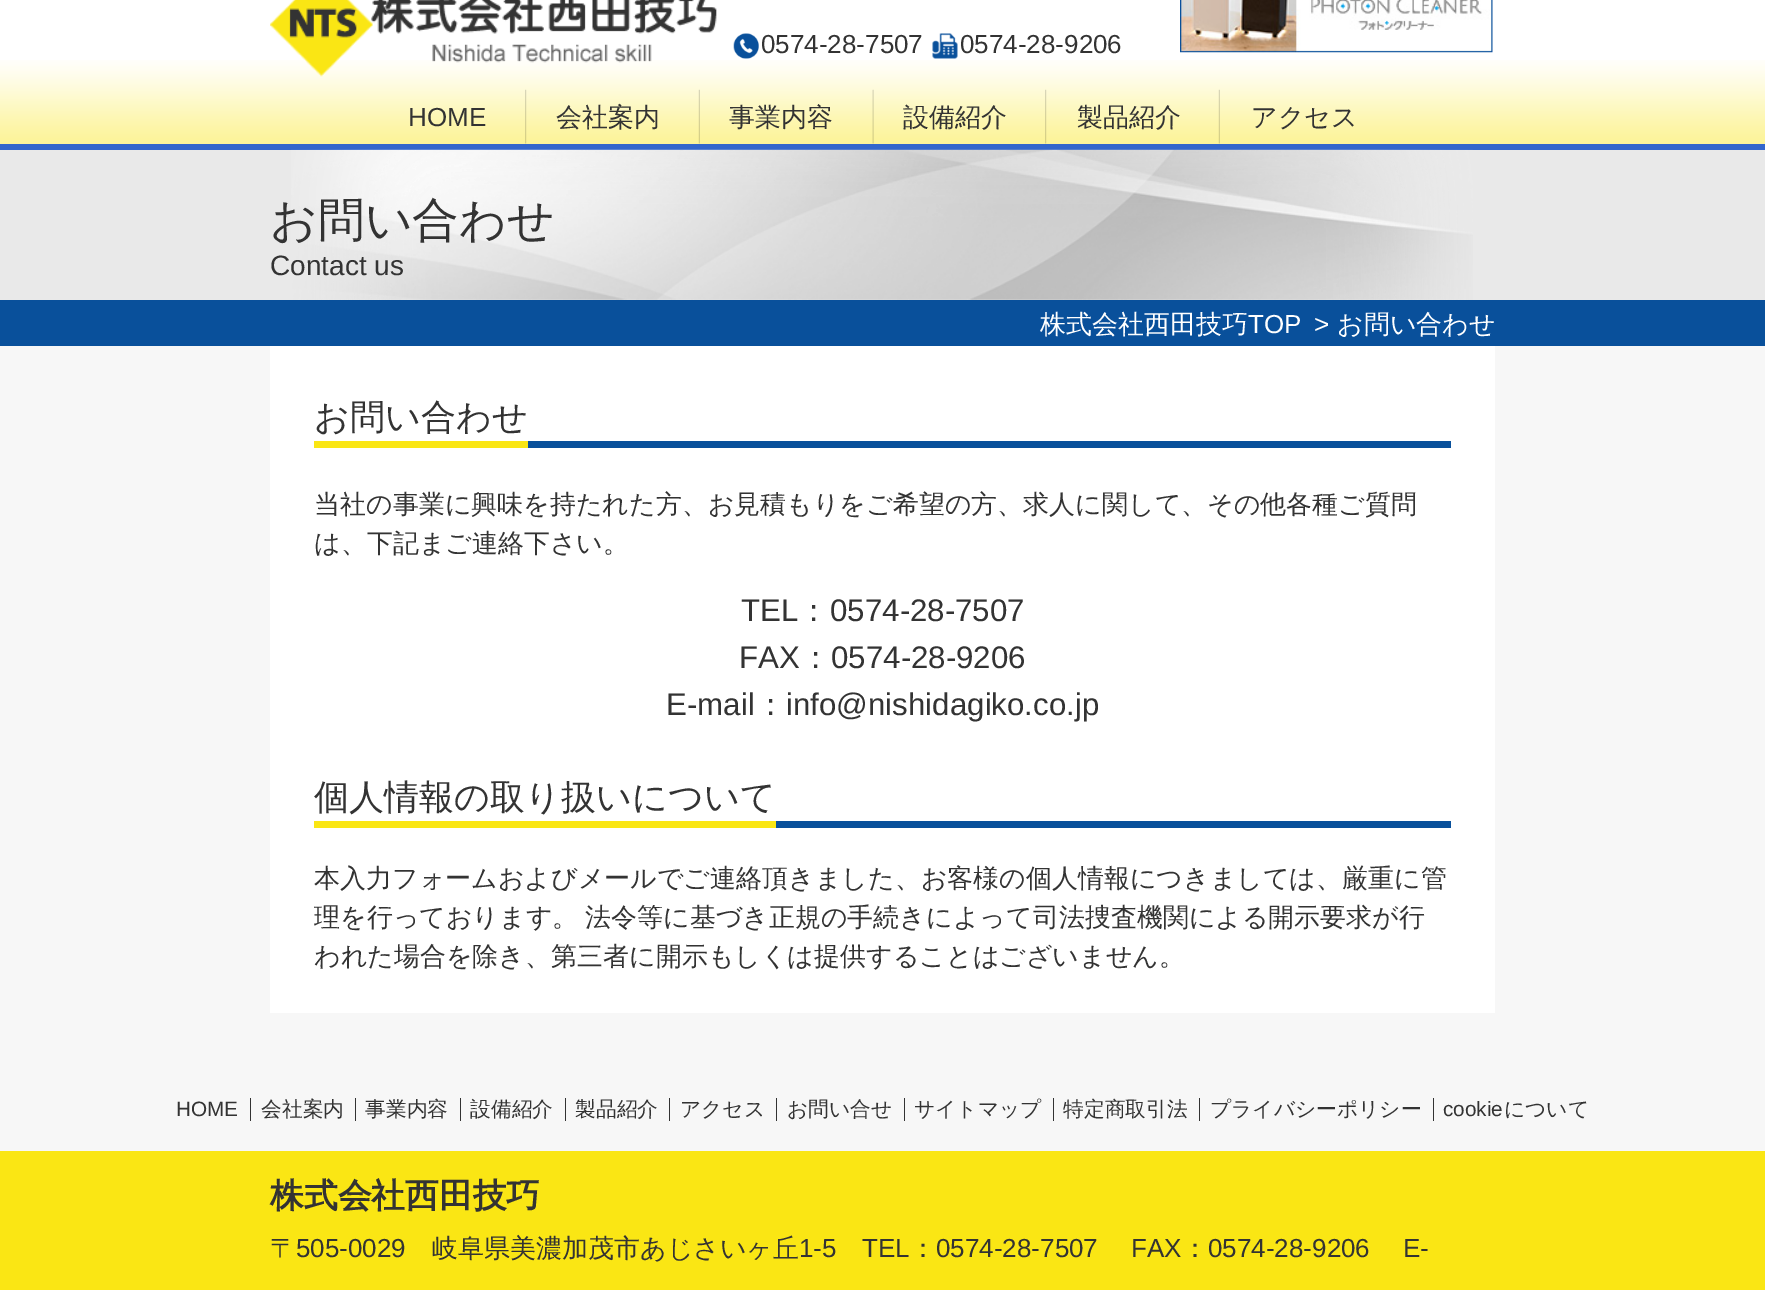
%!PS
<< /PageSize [1765 1290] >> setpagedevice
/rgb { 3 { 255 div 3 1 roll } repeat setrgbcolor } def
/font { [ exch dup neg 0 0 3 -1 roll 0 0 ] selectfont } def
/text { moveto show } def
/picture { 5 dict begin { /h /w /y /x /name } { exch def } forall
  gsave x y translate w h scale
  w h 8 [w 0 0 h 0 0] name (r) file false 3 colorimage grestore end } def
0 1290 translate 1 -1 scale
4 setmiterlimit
255 255 255 rgb
0 0 1765 1290 rectfill
(img_01.rgb) 0 60 1765 84 picture
(img_02.rgb) 270 0 447 77 picture
(img_03.rgb) 733 33 26 26 picture
(img_04.rgb) 932 33 26 26 picture
(img_05.rgb) 1180 0 313 53 picture
51 102 204 rgb
0 144 1765 6 rectfill
(img_06.rgb) 525 89 2 55 picture
(img_07.rgb) 698 89 2 55 picture
(img_08.rgb) 872 89 2 55 picture
(img_09.rgb) 1045 89 2 55 picture
(img_07.rgb) 1218 89 2 55 picture
247 247 247 rgb
0 346 1765 805 rectfill
233 233 233 rgb
0 150 1765 150 rectfill
(img_10.rgb) 291 149 1182 151 picture
9 80 155 rgb
0 300 1765 46 rectfill
255 255 255 rgb
270 346 1225 667 rectfill
250 230 20 rgb
314 441 214 7 rectfill
9 80 155 rgb
528 441 923 7 rectfill
250 230 20 rgb
314 821 462 7 rectfill
9 80 155 rgb
776 821 675 7 rectfill
51 51 51 rgb
250 1098 1 23 rectfill
355 1098 1 23 rectfill
460 1098 1 23 rectfill
565 1098 1 23 rectfill
669 1098 1 23 rectfill
776 1098 1 23 rectfill
904 1098 1 23 rectfill
1053 1098 1 23 rectfill
1199 1098 1 23 rectfill
1433 1098 1 23 rectfill
250 230 20 rgb
0 1151 1765 139 rectfill
/LiberationSans-Regular 26 font
51 51 51 rgb
(0574-28-7507) 761 53 text
(0574-28-9206) 960 53 text
(HOME) 408 126 text
/WenQuanYiZenHei-Medium 26 font
(会社案内) 556 126 text
(事業内容) 729 126 text
(設備紹介) 903 126 text
(製品紹介) 1077 126 text
(アクセス) 1251 126 text
/WenQuanYiZenHei-Medium 46.75 font
(お問い合わせ) 270 236 text
/LiberationSans-Regular 28 font
(Contact us) 270 275 text
/WenQuanYiZenHei-Medium 26 font
255 255 255 rgb
(株式会社西田技巧) 1040 333 text
/LiberationSans-Regular 26 font
(TOP) 1248 333 text
(>) 1314 333 text
/WenQuanYiZenHei-Medium 26 font
(お問い合わせ) 1337 333 text
/WenQuanYiZenHei-Medium 35.1 font
51 51 51 rgb
(お問い合わせ) 314 429 text
/WenQuanYiZenHei-Medium 26 font
(当社の事業に興味を持たれた方、お見積もりをご希望の方、求人に関して、その他各種ご質問) 314 513 text
(は、下記まご連絡下さい。) 314 552 text
/LiberationSans-Regular 31.25 font
(TEL) 741 621 text
/WenQuanYiZenHei-Medium 31.25 font
(：) 798 621 text
/LiberationSans-Regular 31.25 font
(0574-28-7507) 830 621 text
(FAX) 739 668 text
/WenQuanYiZenHei-Medium 31.25 font
(：) 800 668 text
/LiberationSans-Regular 31.25 font
(0574-28-9206) 831 668 text
(E-mail) 666 715 text
/WenQuanYiZenHei-Medium 31.25 font
(：) 755 715 text
/LiberationSans-Regular 31.25 font
(info@nishidagiko.co.jp) 786 715 text
/WenQuanYiZenHei-Medium 35.1 font
(個人情報の取り扱いについて) 314 809 text
/WenQuanYiZenHei-Medium 26 font
(本入力フォームおよびメールでご連絡頂きました、お客様の個人情報につきましては、厳重に管) 314 887 text
314 926 moveto -1 0 32 (理を行っております。 法令等に基づき正規の手続きによって司法捜査機関による開示要求が行) widthshow
(われた場合を除き、第三者に開示もしくは提供することはございません。) 314 965 text
/LiberationSans-Regular 20.75 font
(HOME) 176 1116 text
/WenQuanYiZenHei-Medium 20.75 font
(会社案内) 261 1116 text
(事業内容) 365 1116 text
(設備紹介) 470 1116 text
(製品紹介) 575 1116 text
(アクセス) 680 1116 text
(お問い合せ) 787 1116 text
(サイトマップ) 914 1116 text
(特定商取引法) 1063 1116 text
(プライバシーポリシー) 1210 1116 text
/LiberationSans-Regular 20.75 font
(cookie) 1443 1116 text
/WenQuanYiZenHei-Medium 20.75 font
(について) 1504 1116 text
/WenQuanYiZenHei-Bold 33.75 font
(株式会社西田技巧) 270 1207 text
/WenQuanYiZenHei-Medium 26 font
(〒) 270 1257 text
/LiberationSans-Regular 26 font
(505-0029) 296 1257 text
/WenQuanYiZenHei-Medium 26 font
(岐阜県美濃加茂市あじさいヶ丘) 432 1257 text
/LiberationSans-Regular 26 font
(1-5) 799 1257 text
(TEL) 862 1257 text
/WenQuanYiZenHei-Medium 26 font
(：) 910 1257 text
/LiberationSans-Regular 26 font
(0574-28-7507) 936 1257 text
(FAX) 1131 1257 text
/WenQuanYiZenHei-Medium 26 font
(：) 1182 1257 text
/LiberationSans-Regular 26 font
(0574-28-9206) 1208 1257 text
(E-) 1403 1257 text
showpage
